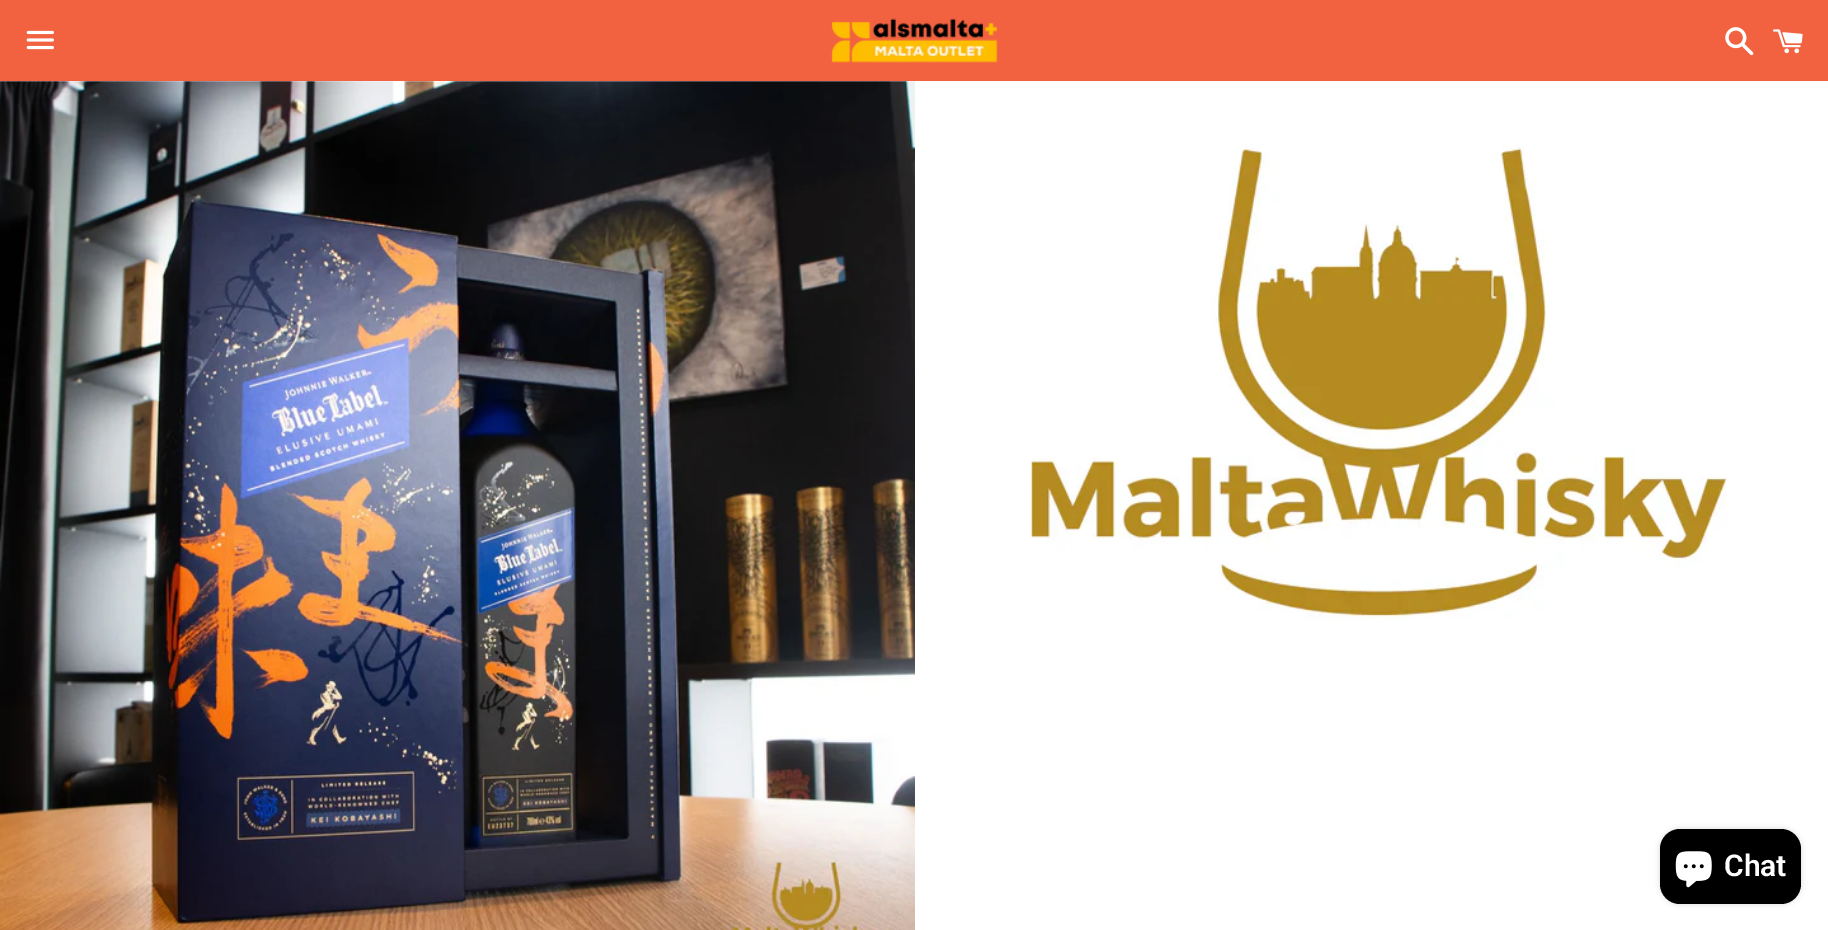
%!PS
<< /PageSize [1828 930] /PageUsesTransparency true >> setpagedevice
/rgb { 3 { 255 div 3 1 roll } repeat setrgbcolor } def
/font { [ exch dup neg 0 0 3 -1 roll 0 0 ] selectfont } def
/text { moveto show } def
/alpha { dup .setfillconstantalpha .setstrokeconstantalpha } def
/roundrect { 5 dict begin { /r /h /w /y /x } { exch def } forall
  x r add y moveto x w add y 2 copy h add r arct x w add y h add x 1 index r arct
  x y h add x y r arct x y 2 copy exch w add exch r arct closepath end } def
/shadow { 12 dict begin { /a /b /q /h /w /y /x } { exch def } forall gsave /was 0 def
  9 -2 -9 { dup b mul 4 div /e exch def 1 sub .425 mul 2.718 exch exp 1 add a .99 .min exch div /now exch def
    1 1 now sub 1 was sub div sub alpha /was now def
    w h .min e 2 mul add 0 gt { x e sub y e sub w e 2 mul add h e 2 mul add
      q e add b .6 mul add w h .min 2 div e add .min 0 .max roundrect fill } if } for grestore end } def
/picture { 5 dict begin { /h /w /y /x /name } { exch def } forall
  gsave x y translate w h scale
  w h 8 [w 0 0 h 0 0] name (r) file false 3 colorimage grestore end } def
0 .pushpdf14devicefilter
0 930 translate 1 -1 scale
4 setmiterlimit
255 255 255 rgb
0 0 1828 930 rectfill
242 98 65 rgb
0 0 1828 81 rectfill
(img_01.rgb) 26 30 28 20 picture
(img_02.rgb) 831 18 167 45 picture
(img_03.rgb) 1725 27 29 29 picture
(img_04.rgb) 1773 29 30 25 picture
(img_05.rgb) 0 81 915 849 picture
(img_06.rgb) 1030 144 697 476 picture
0 0 0 rgb
1660 829 141 75 20 3 0.15 shadow
1660 829 141 75 20 roundrect fill
(img_07.rgb) 1675 851 37 37 picture
/Roboto-SemiBold 30 font
255 255 255 rgb
(Chat) 1724 876 text
.poppdf14devicefilter showpage
